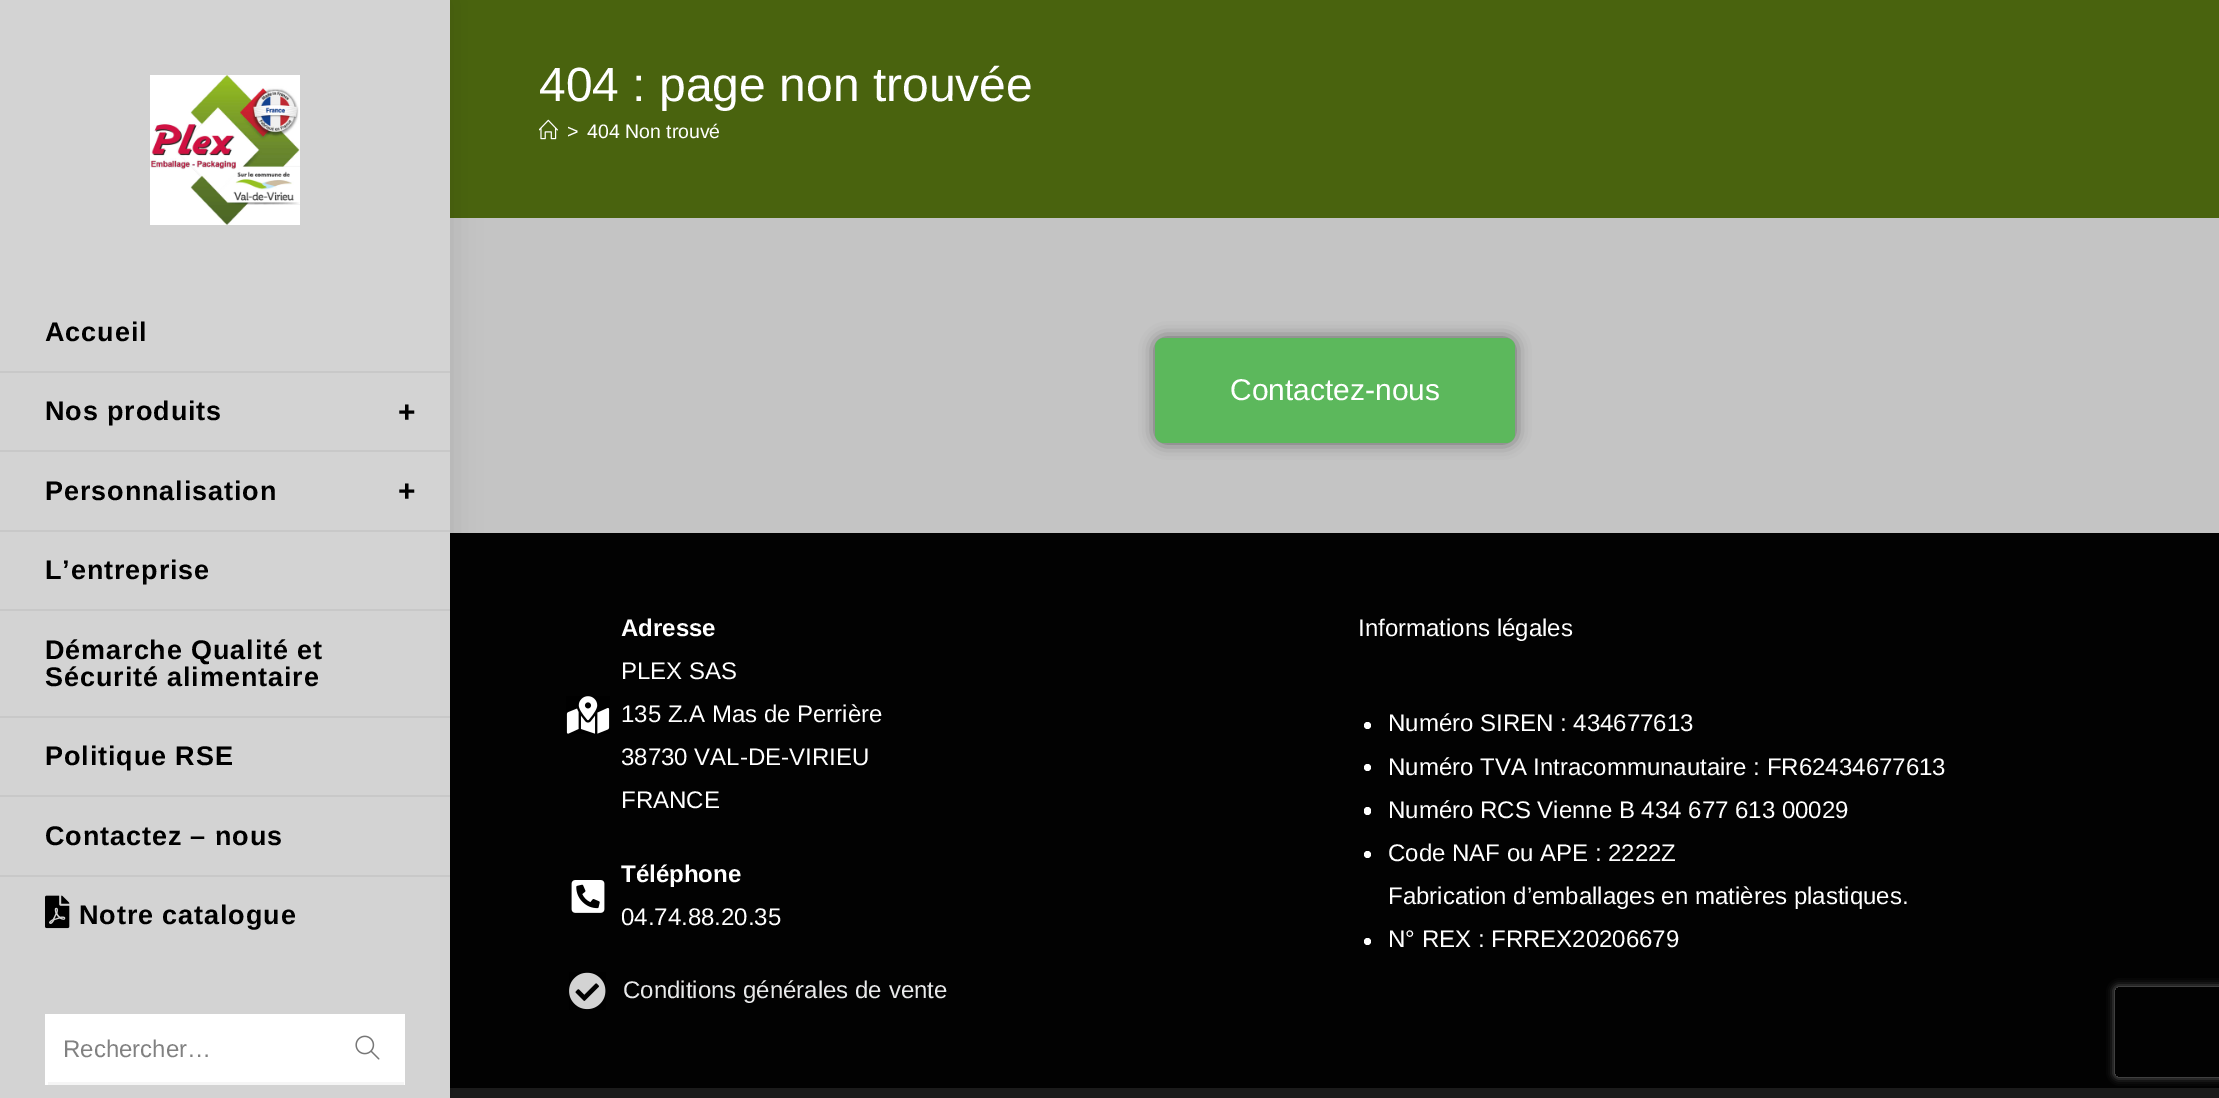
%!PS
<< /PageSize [2219 1098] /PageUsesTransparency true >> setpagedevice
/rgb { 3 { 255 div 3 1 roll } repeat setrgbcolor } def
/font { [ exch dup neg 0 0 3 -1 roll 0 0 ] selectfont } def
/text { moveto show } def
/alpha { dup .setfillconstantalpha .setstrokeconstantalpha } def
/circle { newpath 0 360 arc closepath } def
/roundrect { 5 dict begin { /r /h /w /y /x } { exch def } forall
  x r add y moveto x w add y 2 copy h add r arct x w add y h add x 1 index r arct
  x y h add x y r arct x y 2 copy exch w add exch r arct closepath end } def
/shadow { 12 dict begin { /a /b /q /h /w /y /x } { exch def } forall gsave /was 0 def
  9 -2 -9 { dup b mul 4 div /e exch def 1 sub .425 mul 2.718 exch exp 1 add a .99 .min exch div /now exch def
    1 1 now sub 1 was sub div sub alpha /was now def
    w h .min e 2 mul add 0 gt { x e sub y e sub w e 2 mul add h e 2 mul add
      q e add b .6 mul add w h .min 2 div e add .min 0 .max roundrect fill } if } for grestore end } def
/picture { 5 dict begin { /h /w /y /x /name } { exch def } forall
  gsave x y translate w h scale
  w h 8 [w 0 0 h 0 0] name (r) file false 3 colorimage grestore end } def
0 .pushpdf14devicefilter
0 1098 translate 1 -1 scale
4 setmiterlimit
196 196 196 rgb
0 0 2219 1098 rectfill
73 99 14 rgb
450 0 1769 218 rectfill
(img_01.rgb) 539 119 19 21 picture
0 0 0 rgb
1155 338 360 105 9 7.5 0.5 shadow
92 184 92 rgb
1155 338 360 105 9 roundrect fill
2 2 2 rgb
450 533 1769 555 rectfill
27 27 27 rgb
450 1088 1769 10 rectfill
0 0 0 rgb
0 0 450 1098 0 15 0.1 shadow
211 211 211 rgb
0 0 450 1098 rectfill
(img_02.rgb) 150 75 150 150 picture
200 200 200 rgb
0 371 450 2 rectfill
0 450 450 2 rectfill
0 530 450 2 rectfill
0 609 450 2 rectfill
0 716 450 2 rectfill
0 795 450 2 rectfill
0 875 450 2 rectfill
(img_03.rgb) 45 895 25 34 picture
255 255 255 rgb
45 1014 360 71 rectfill
(img_04.rgb) 355 1035 25 25 picture
245 245 245 rgb
48 1082 356 3 rectfill
(img_05.rgb) 566 696 44 38 picture
(img_06.rgb) 571 880 34 33 picture
(img_07.rgb) 569 972 37 38 picture
255 255 255 rgb
1367.5 725.5 3.5 circle fill
1367.5 767.5 3.5 circle fill
1364 807 7 8 3.5 roundrect fill
1367.5 854.5 3.5 circle fill
1367.5 941.5 3.5 circle fill
gsave
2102 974 moveto 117 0 rlineto 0 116 rlineto -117 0 rlineto closepath 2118 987 moveto 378 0 rlineto 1.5 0 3 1.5 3 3 rcurveto 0 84 rlineto 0 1.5 -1.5 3 -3 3 rcurveto -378 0 rlineto -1.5 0 -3 -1.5 -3 -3 rcurveto 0 -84 rlineto 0 -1.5 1.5 -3 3 -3 rcurveto closepath eoclip newpath
128 128 128 rgb
2115 987 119 90 3 4 1 shadow
grestore
/LiberationSans-Regular 48 font
(404 : page non trouvée) 539 101 text
/LiberationSans-Regular 19.5 font
(>) 567 138 text
(404 Non trouvé) 587 138 text
/LiberationSans-Regular 30 font
(Contactez-nous) 1230 400 text
/LiberationSans-Bold 27 font
0 0 0 rgb
45 341 moveto 0.9 0 (Accueil) ashow
45 420 moveto 0.9 0 (Nos produits) ashow
/LiberationSans-Bold 30 font
398 422 moveto 0.9 0 (+) ashow
/LiberationSans-Bold 27 font
45 500 moveto 0.9 0 (Personnalisation) ashow
/LiberationSans-Bold 30 font
398 501 moveto 0.9 0 (+) ashow
/LiberationSans-Bold 27 font
45 579 moveto 0.9 0 (L’entreprise) ashow
45 659 moveto 0.9 0 (Démarche Qualité et) ashow
45 686 moveto 0.9 0 (Sécurité alimentaire) ashow
45 765 moveto 0.9 0 (Politique RSE) ashow
45 845 moveto 0.9 0 (Contactez – nous) ashow
79 924 moveto 0.9 0 (Notre catalogue) ashow
/LiberationSans-Regular 24 font
129 129 129 rgb
(Rechercher…) 63 1057 text
/LiberationSans-Bold 24 font
255 255 255 rgb
(Adresse) 621 636 text
/LiberationSans-Regular 24 font
(PLEX SAS) 621 679 text
(135 Z.A Mas de Perrière) 621 722 text
(38730 VAL-DE-VIRIEU) 621 765 text
(FRANCE) 621 808 text
/LiberationSans-Bold 24 font
(Téléphone) 621 882 text
/LiberationSans-Regular 24 font
(04.74.88.20.35) 621 925 text
232 233 234 rgb
(Conditions générales de vente) 623 998 text
255 255 255 rgb
(Informations légales) 1358 636 text
(Numéro SIREN : 434677613) 1388 731 text
(Numéro TVA Intracommunautaire : FR62434677613) 1388 775 text
(Numéro RCS Vienne B 434 677 613 00029) 1388 818 text
(Code NAF ou APE : 2222Z) 1388 861 text
(Fabrication d’emballages en matières plastiques.) 1388 904 text
(N° REX : FRREX20206679) 1388 947 text
.poppdf14devicefilter showpage
